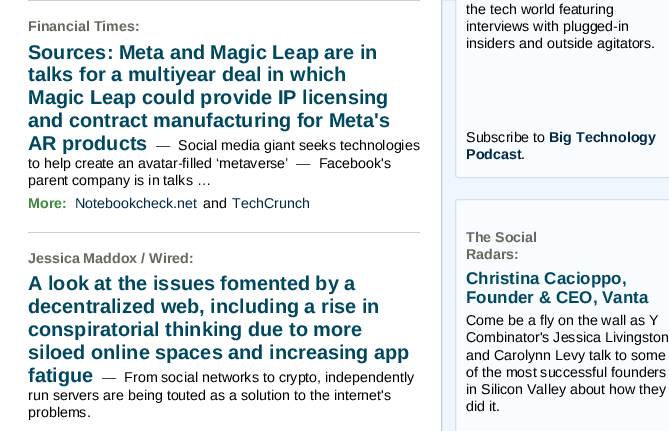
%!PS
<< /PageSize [669 431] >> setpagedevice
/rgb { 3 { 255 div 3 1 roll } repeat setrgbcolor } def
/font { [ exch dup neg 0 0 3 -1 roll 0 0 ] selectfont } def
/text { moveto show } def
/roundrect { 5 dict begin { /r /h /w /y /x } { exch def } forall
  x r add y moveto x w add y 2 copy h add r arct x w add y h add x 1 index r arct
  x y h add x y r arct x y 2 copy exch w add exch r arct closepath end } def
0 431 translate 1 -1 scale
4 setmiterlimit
255 255 255 rgb
0 0 669 431 rectfill
204 204 204 rgb
28 0 392 1 rectfill
28 232 392 1 rectfill
240 246 253 rgb
441.5 -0.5 moveto 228 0 rlineto 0 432 rlineto -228 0 rlineto closepath gsave fill grestore
187 204 221 rgb
stroke
249 252 254 rgb
455.5 -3.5 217 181 2.5 roundrect gsave fill grestore
216 224 232 rgb
stroke
249 252 254 rgb
455.5 199.5 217 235 2.5 roundrect gsave fill grestore
216 224 232 rgb
stroke
/LiberationSans-Bold 14.25 font
104 104 96 rgb
(Financial Times) 28 31 text
(:) 135 31 text
/LiberationSans-Bold 19.9 font
0 72 96 rgb
(Sources: Meta and Magic Leap are in) 28 59 text
(talks for a multiyear deal in which) 28 81 text
(Magic Leap could provide IP licensing) 28 104 text
(and contract manufacturing for Meta's) 28 127 text
(AR products) 28 150 text
/LiberationSans-Regular 14.25 font
0 0 0 rgb
(—  Social media giant seeks technologies) 156 150 text
(to help create an avatar-filled ‘metaverse’  —  Facebook's) 28 168 text
(parent company is in talks …) 28 185 text
/LiberationSans-Bold 14.25 font
64 136 64 rgb
(More:) 28 208 text
/LiberationSans-Regular 14.25 font
0 40 72 rgb
(Notebookcheck.net) 75 208 text
0 0 0 rgb
(and) 203 208 text
0 40 72 rgb
(TechCrunch) 232 208 text
/LiberationSans-Bold 14.25 font
104 104 96 rgb
(Jessica Maddox / Wired) 28 263 text
(:) 189 263 text
/LiberationSans-Bold 19.9 font
0 72 96 rgb
(A look at the issues fomented by a) 28 290 text
(decentralized web, including a rise in) 28 313 text
(conspiratorial thinking due to more) 28 336 text
(siloed online spaces and increasing app) 28 359 text
(fatigue) 28 382 text
/LiberationSans-Regular 14.25 font
0 0 0 rgb
(—  From social networks to crypto, independently) 102 382 text
(run servers are being touted as a solution to the internet's) 28 400 text
(problems.) 28 417 text
(the tech world featuring) 466 14 text
(interviews with plugged-in) 466 31 text
(insiders and outside agitators.) 466 48 text
(Subscribe to) 466 142 text
/LiberationSans-Bold 14.25 font
0 40 72 rgb
(Big Technology) 549 142 text
(Podcast) 466 159 text
/LiberationSans-Regular 14.25 font
0 0 0 rgb
(.) 521 159 text
/LiberationSans-Bold 14.25 font
104 104 96 rgb
(The Social) 466 242 text
(Radars:) 466 259 text
/LiberationSans-Bold 17 font
0 72 96 rgb
(Christina Cacioppo,) 466 284 text
(Founder & CEO, Vanta) 466 303 text
/LiberationSans-Regular 14.25 font
0 0 0 rgb
(Come be a fly on the wall as Y) 466 325 text
(Combinator's Jessica Livingston) 466 342 text
(and Carolynn Levy talk to some) 466 360 text
(of the most successful founders) 466 377 text
(in Silicon Valley about how they) 466 394 text
(did it.) 466 411 text
showpage
